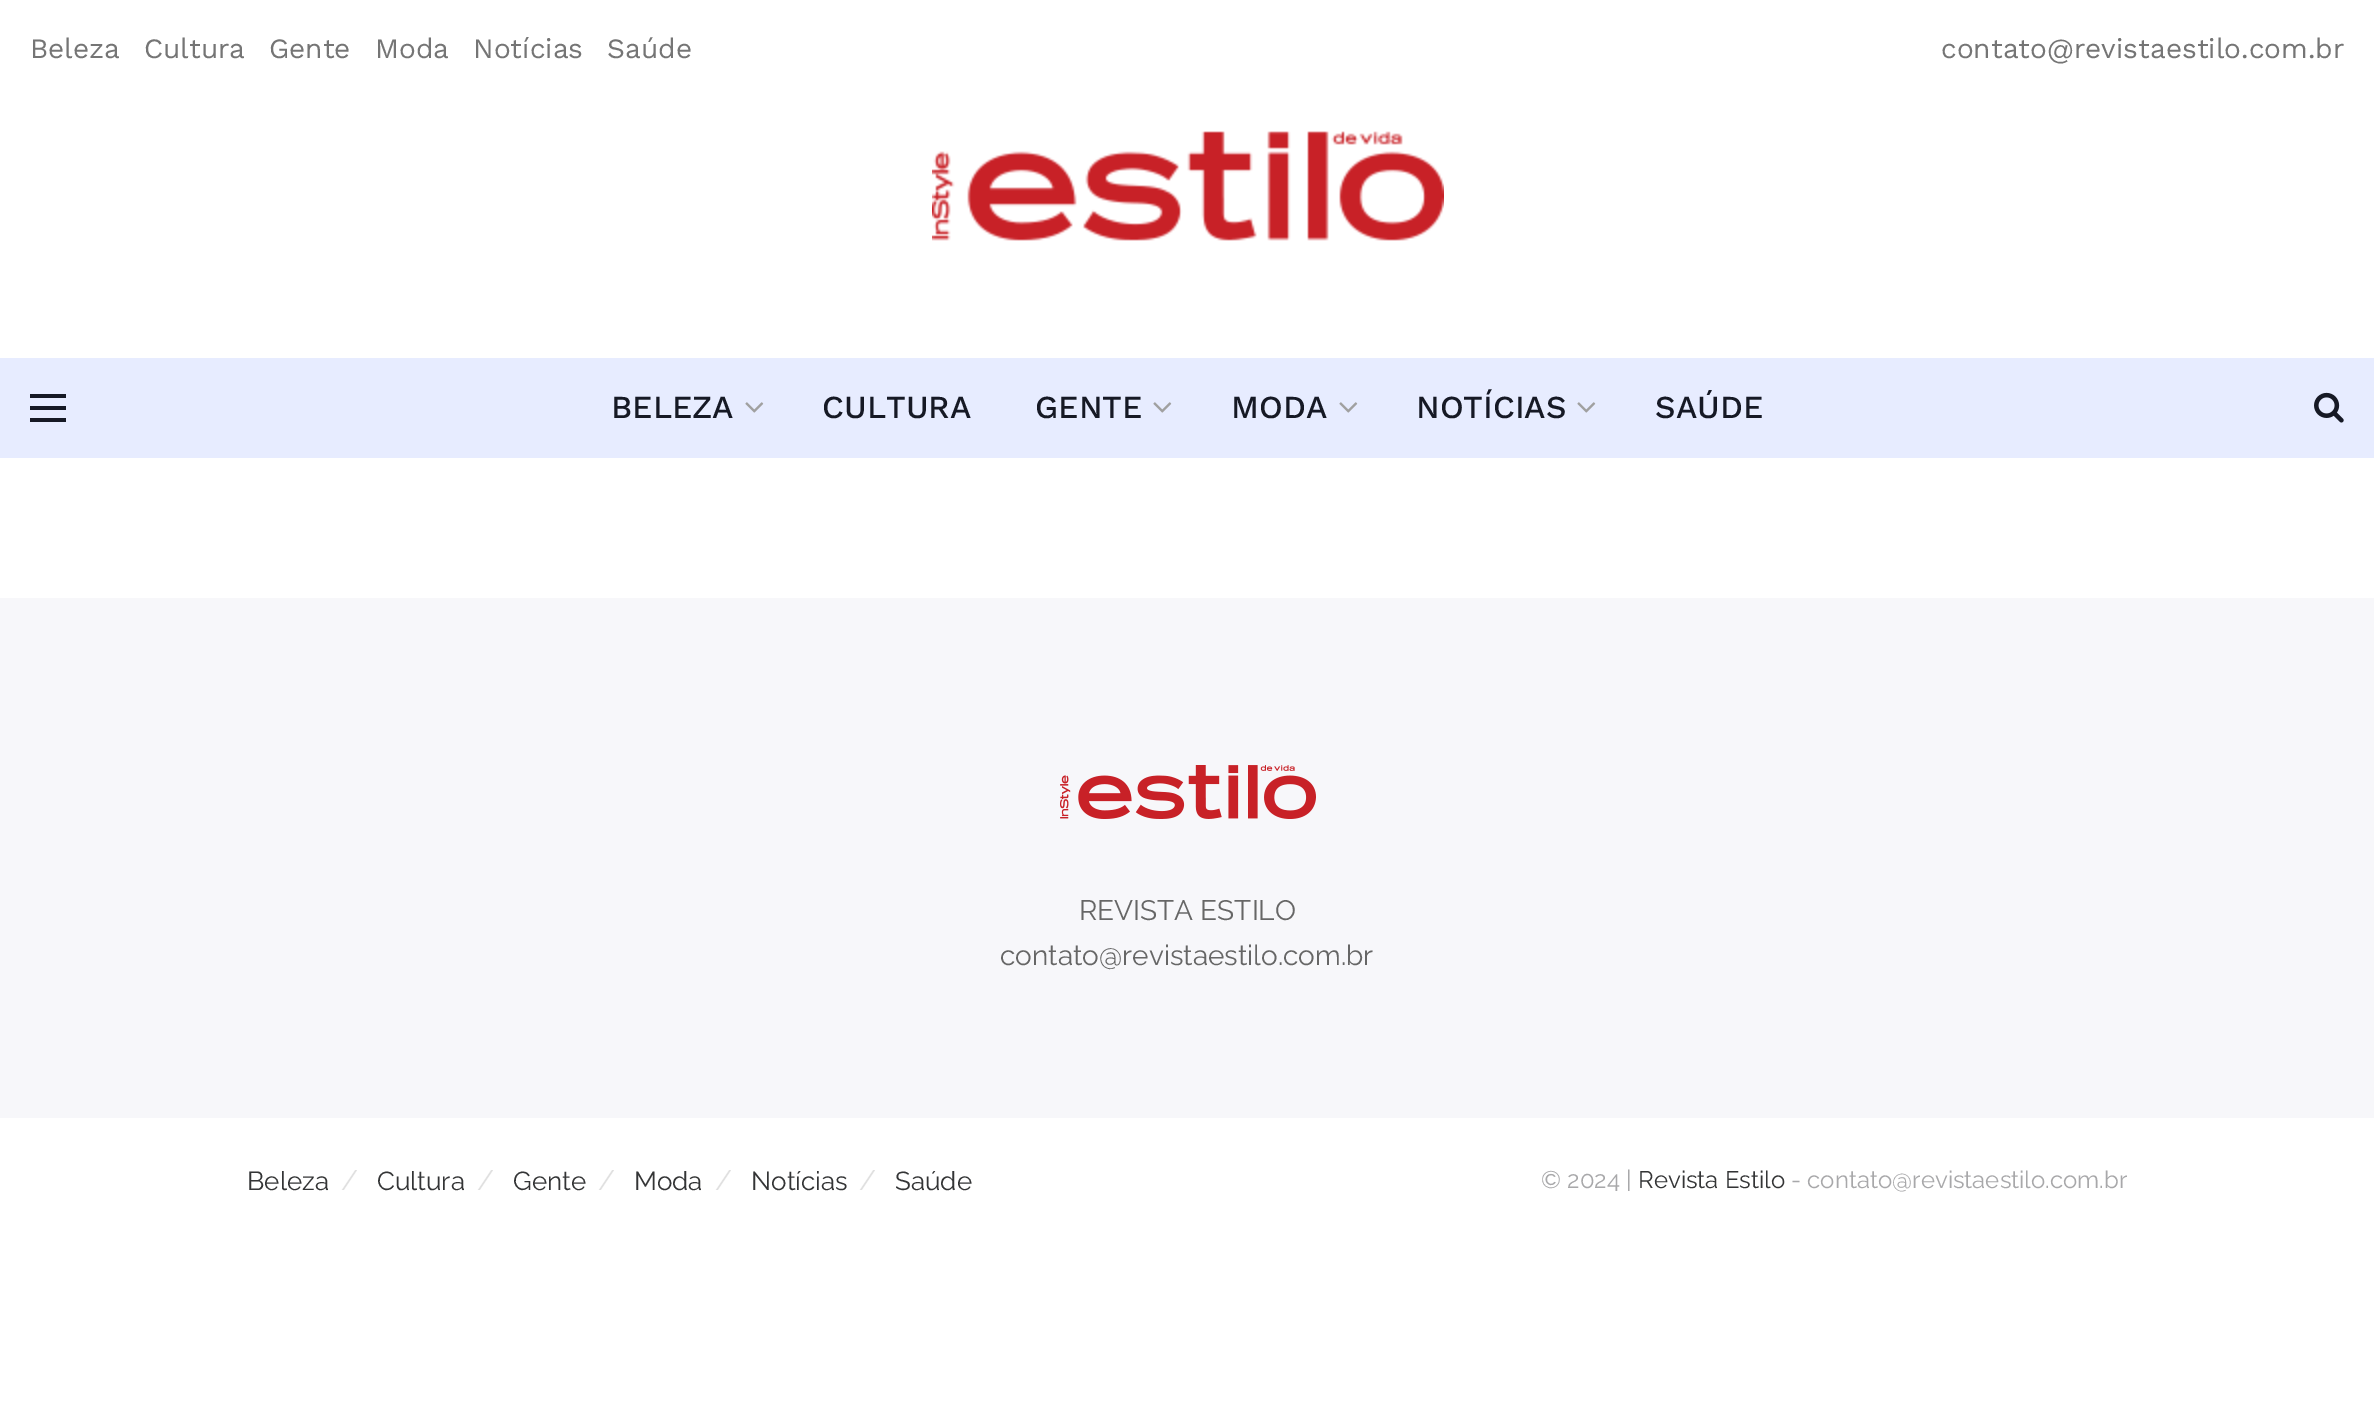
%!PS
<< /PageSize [2374 1412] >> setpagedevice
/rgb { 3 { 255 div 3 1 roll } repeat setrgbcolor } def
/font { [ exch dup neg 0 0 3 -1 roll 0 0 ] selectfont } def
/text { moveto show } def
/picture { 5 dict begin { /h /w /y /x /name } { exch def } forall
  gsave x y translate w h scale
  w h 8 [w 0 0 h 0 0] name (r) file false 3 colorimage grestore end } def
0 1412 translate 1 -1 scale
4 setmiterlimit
255 255 255 rgb
0 0 2374 1412 rectfill
(img_01.rgb) 932 131 512 110 picture
231 236 255 rgb
0 358 2374 100 rectfill
22 25 37 rgb
30 394 36 4 rectfill
30 406 36 4 rectfill
30 418 36 4 rectfill
(img_02.rgb) 745 402 19 11 picture
(img_02.rgb) 1153 402 19 11 picture
(img_02.rgb) 1339 402 19 11 picture
(img_02.rgb) 1577 402 19 11 picture
(img_03.rgb) 2314 392 30 31 picture
247 247 250 rgb
0 598 2374 520 rectfill
(img_04.rgb) 1060 765 256 54 picture
/WorkSans-Regular 28 font
117 117 117 rgb
(Beleza) 30 58 text
(Cultura) 144 58 text
(Gente) 269 58 text
(Moda) 375 58 text
(Notícias) 473 58 text
(Saúde) 607 58 text
(contato@revistaestilo.com.br) 1941 58 text
/WorkSans-Medium 32 font
22 25 37 rgb
(BELEZA) 611 418 text
(CULTURA) 822 418 text
(GENTE) 1035 418 text
(MODA) 1231 418 text
(NOTÍCIAS) 1416 418 text
(SAÚDE) 1655 418 text
/Raleway-Regular 28 font
102 102 102 rgb
(REVISTA ESTILO) 1079 920 text
(contato@revistaestilo.com.br) 1000 965 text
/Raleway-Regular 26 font
52 53 54 rgb
(Beleza) 247 1190 text
/Raleway-Regular 28 font
224 224 224 rgb
(/) 341 1190 text
/Raleway-Regular 26 font
52 53 54 rgb
(Cultura) 377 1190 text
/Raleway-Regular 28 font
224 224 224 rgb
(/) 477 1190 text
/Raleway-Regular 26 font
52 53 54 rgb
(Gente) 513 1190 text
/Raleway-Regular 28 font
224 224 224 rgb
(/) 598 1190 text
/Raleway-Regular 26 font
52 53 54 rgb
(Moda) 634 1190 text
/Raleway-Regular 28 font
224 224 224 rgb
(/) 715 1190 text
/Raleway-Regular 26 font
52 53 54 rgb
(Notícias) 751 1190 text
/Raleway-Regular 28 font
224 224 224 rgb
(/) 859 1190 text
/Raleway-Regular 26 font
52 53 54 rgb
(Saúde) 895 1190 text
/Raleway-Regular 24 font
168 168 170 rgb
(© 2024 |) 1541 1188 text
52 53 54 rgb
(Revista Estilo) 1638 1188 text
168 168 170 rgb
(- contato@revistaestilo.com.br) 1791 1188 text
showpage
